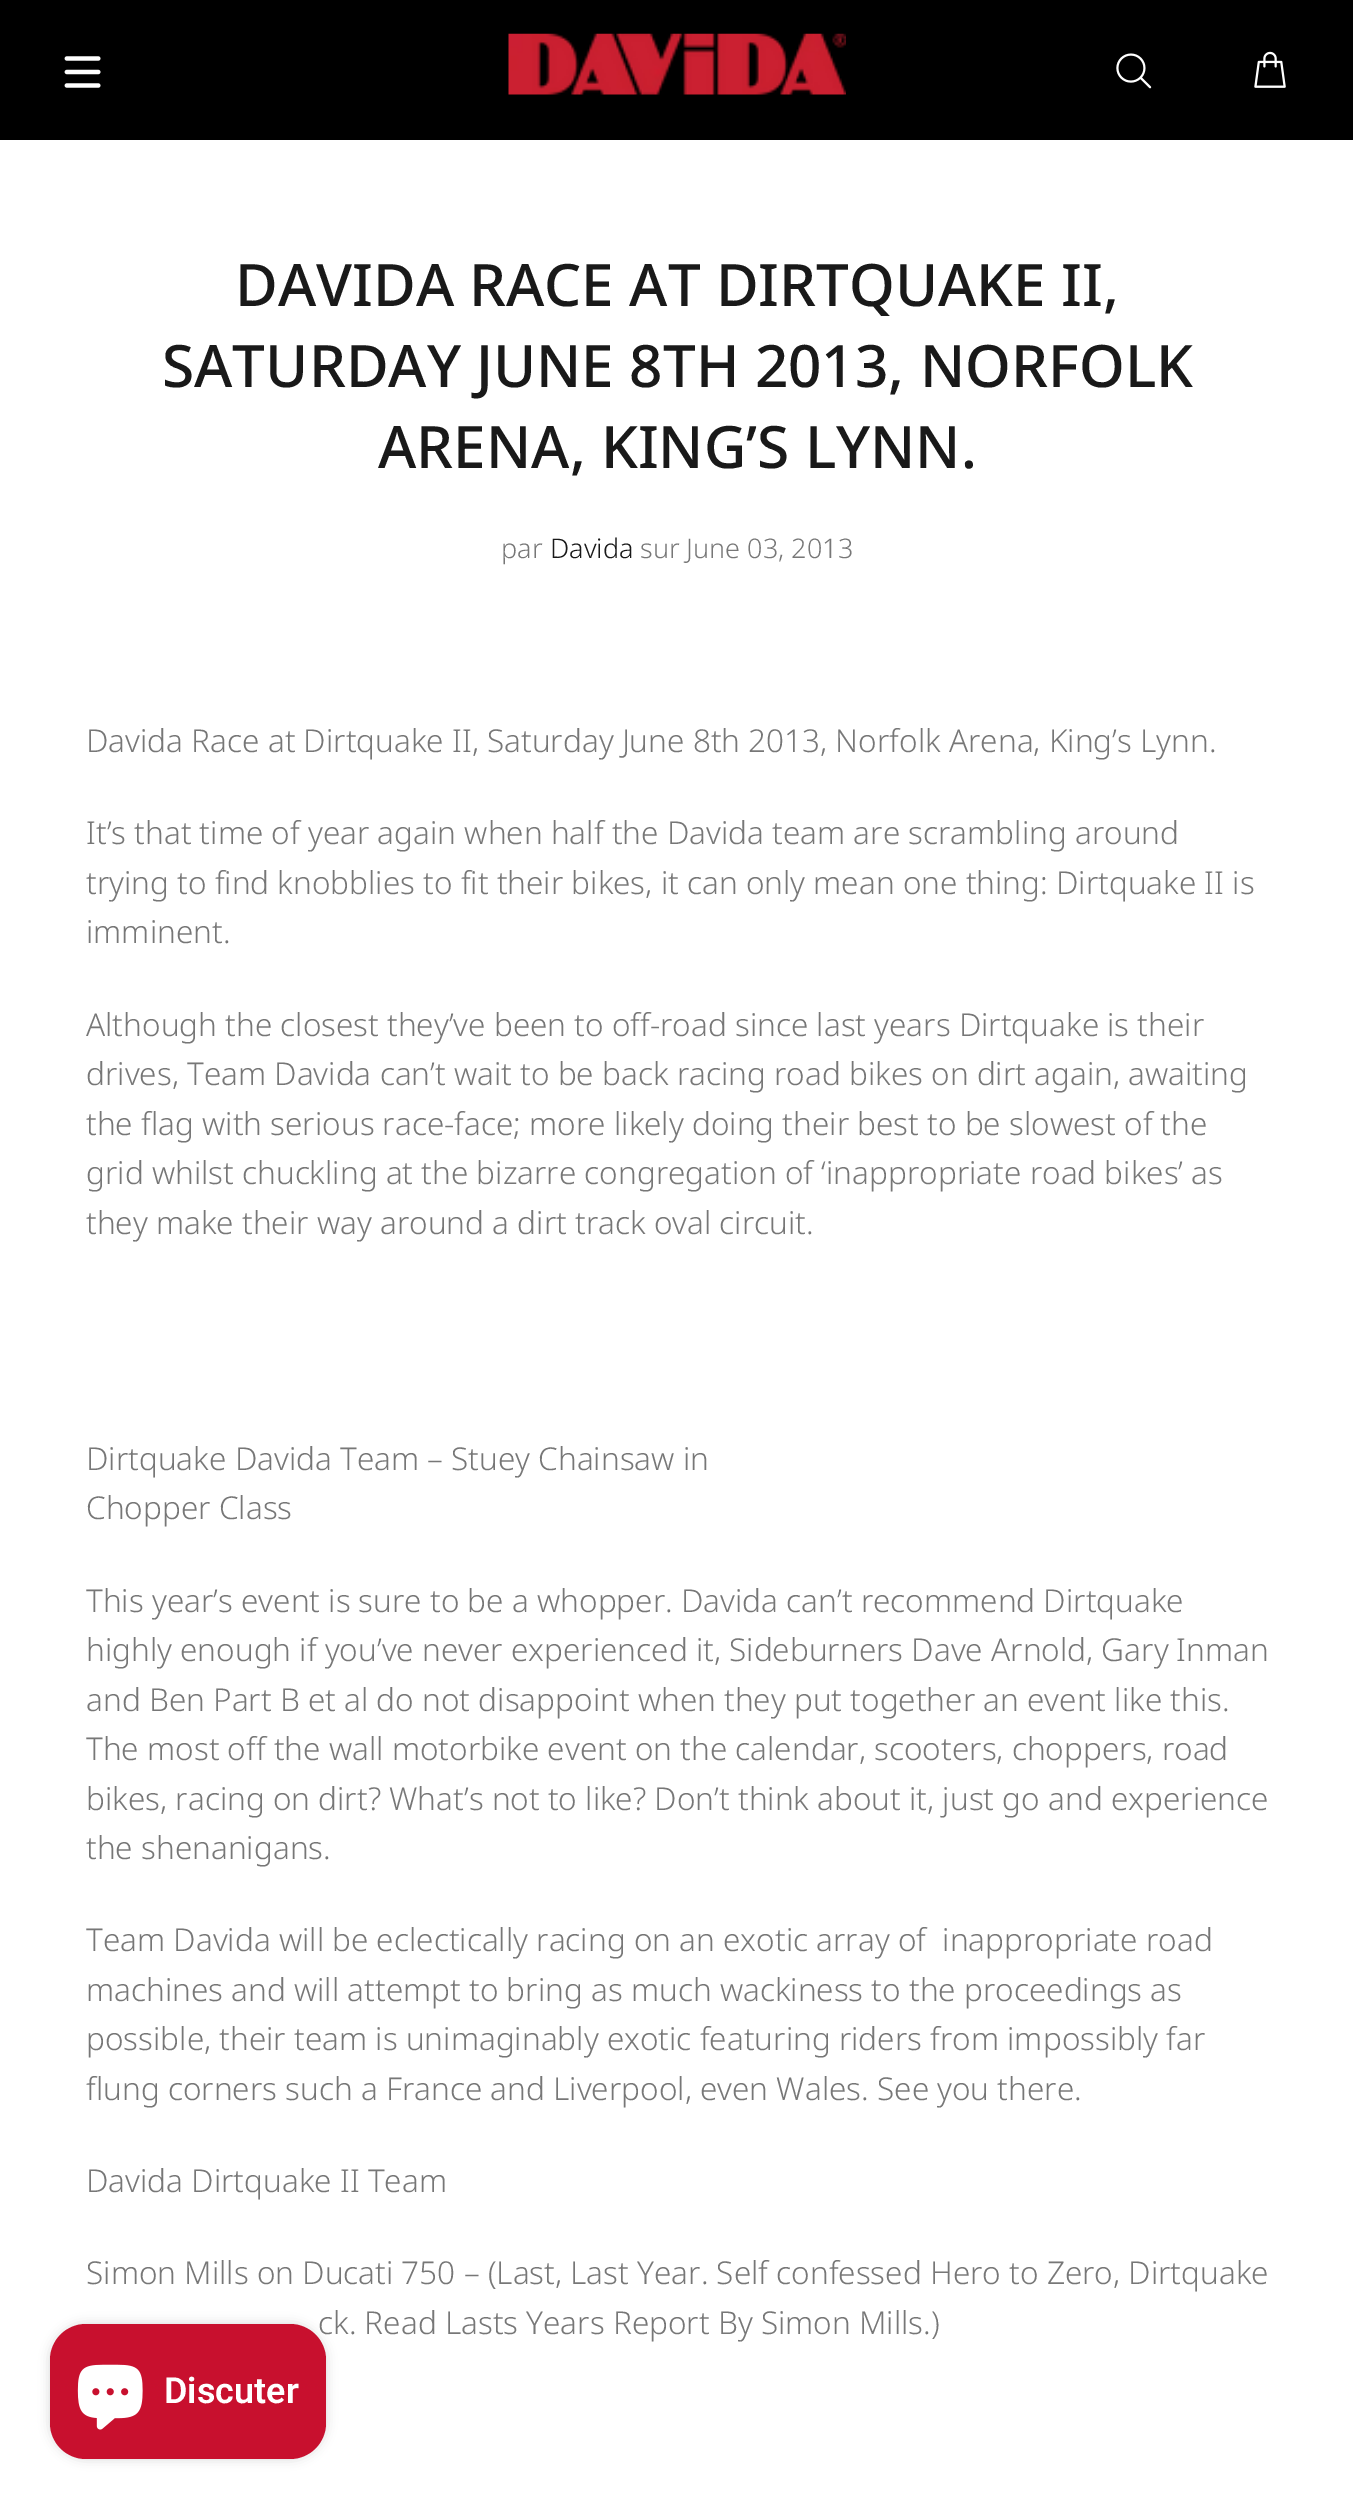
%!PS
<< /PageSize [1353 2506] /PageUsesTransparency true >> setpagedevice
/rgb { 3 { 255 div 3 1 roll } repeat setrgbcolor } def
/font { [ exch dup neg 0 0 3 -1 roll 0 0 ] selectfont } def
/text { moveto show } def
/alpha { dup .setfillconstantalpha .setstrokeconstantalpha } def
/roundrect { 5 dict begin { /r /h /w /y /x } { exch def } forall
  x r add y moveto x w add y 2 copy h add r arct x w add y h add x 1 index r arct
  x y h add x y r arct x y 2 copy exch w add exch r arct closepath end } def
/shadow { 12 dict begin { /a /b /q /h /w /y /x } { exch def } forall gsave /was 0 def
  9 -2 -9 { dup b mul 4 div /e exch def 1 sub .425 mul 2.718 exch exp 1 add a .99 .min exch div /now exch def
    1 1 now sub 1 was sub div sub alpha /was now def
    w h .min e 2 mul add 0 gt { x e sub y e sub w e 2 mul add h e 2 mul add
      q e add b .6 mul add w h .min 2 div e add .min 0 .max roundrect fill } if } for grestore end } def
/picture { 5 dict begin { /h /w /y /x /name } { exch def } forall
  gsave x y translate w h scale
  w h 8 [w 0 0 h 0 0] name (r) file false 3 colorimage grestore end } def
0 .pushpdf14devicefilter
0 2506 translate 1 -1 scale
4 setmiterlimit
255 255 255 rgb
0 0 1353 2506 rectfill
0 0 0 rgb
0 0 1353 140 rectfill
(img_01.rgb) 64 56 37 32 picture
(img_02.rgb) 508 33 338 62 picture
(img_03.rgb) 1116 53 36 36 picture
(img_04.rgb) 1254 51 32 37 picture
50 2324 276 135 36 5.5 0.15 shadow
/NotoSans-Medium 58.5 font
25 25 25 rgb
(DAVIDA RACE AT DIRTQUAKE II,) 235 306 text
(SATURDAY JUNE 8TH 2013, NORFOLK) 162 387 text
(ARENA, KING’S LYNN.) 378 468 text
/NotoSans-Light 27 font
119 119 119 rgb
(par) 501 558 text
25 25 25 rgb
(Davida) 550 558 text
119 119 119 rgb
(sur June 03, 2013) 640 558 text
/NotoSans-Light 31.5 font
(Davida Race at Dirtquake II, Saturday June 8th 2013, Norfolk Arena, King’s Lynn.) 86 752 text
(It’s that time of year again when half the Davida team are scrambling around) 86 844 text
(trying to find knobblies to fit their bikes, it can only mean one thing: Dirtquake II is) 86 894 text
(imminent.) 86 943 text
(Although the closest they’ve been to off-road since last years Dirtquake is their) 86 1036 text
(drives, Team Davida can’t wait to be back racing road bikes on dirt again, awaiting) 86 1085 text
(the flag with serious race-face; more likely doing their best to be slowest of the) 86 1135 text
(grid whilst chuckling at the bizarre congregation of ‘inappropriate road bikes’ as) 86 1184 text
(they make their way around a dirt track oval circuit.) 86 1234 text
(Dirtquake Davida Team – Stuey Chainsaw in) 86 1470 text
(Chopper Class) 86 1519 text
(This year’s event is sure to be a whopper. Davida can’t recommend Dirtquake) 86 1612 text
(highly enough if you’ve never experienced it, Sideburners Dave Arnold, Gary Inman) 86 1661 text
(and Ben Part B et al do not disappoint when they put together an event like this.) 86 1711 text
(The most off the wall motorbike event on the calendar, scooters, choppers, road) 86 1760 text
(bikes, racing on dirt? What’s not to like? Don’t think about it, just go and experience) 86 1810 text
(the shenanigans.) 86 1859 text
(Team Davida will be eclectically racing on an exotic array of  inappropriate road) 86 1951 text
(machines and will attempt to bring as much wackiness to the proceedings as) 86 2001 text
(possible, their team is unimaginably exotic featuring riders from impossibly far) 86 2050 text
(flung corners such a France and Liverpool, even Wales. See you there.) 86 2100 text
(Davida Dirtquake II Team) 86 2192 text
(Simon Mills on Ducati 750 – \(Last, Last Year. Self confessed Hero to Zero, Dirtquake) 86 2284 text
(ck. Read Lasts Years Report By Simon Mills.\)) 318 2334 text
200 16 46 rgb
50 2324 276 135 36 roundrect fill
(img_05.rgb) 77 2364 66 66 picture
/Roboto-SemiBold 36 font
255 255 255 rgb
(Discuter) 164 2403 text
.poppdf14devicefilter showpage
